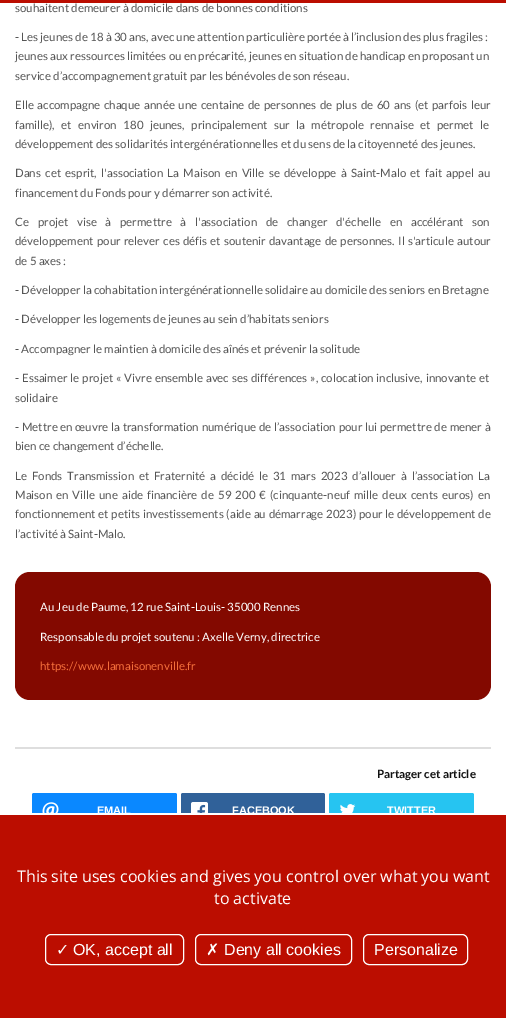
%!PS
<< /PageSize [506 1018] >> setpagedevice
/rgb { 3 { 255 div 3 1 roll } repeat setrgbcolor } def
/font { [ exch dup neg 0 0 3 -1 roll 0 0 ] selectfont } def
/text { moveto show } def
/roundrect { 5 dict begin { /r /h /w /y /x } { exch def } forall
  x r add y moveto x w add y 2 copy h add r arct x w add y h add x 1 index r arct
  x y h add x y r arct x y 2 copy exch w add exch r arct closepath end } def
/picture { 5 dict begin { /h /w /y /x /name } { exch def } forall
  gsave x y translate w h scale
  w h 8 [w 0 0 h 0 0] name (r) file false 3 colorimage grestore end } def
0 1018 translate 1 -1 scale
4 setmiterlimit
255 255 255 rgb
0 0 506 1018 rectfill
187 13 0 rgb
0 0 506 3 rectfill
131 9 0 rgb
15 572 476 128 15 roundrect fill
222 222 222 rgb
15 747 476 2 rectfill
10 136 255 rgb
32 793 145 36 2 roundrect fill
(img_01.rgb) 42 802 17 11 picture
48 97 153 rgb
181 793 144 36 2 roundrect fill
(img_02.rgb) 191 802 17 11 picture
38 196 241 rgb
329 793 145 36 2 roundrect fill
(img_03.rgb) 340 804 16 9 picture
187 13 0 rgb
0 815 506 203 rectfill
255 255 255 rgb
32 813 442 2 rectfill
45.5 934.5 138 30 5.5 roundrect stroke
195.5 934.5 156 30 5.5 roundrect stroke
363.5 934.5 104 30 5.5 roundrect stroke
/Lato-Regular 11.5 font
85 85 85 rgb
(souhaitent demeurer à domicile dans de bonnes conditions) 15 12 text
(- Les jeunes de 18 à 30 ans, avec une attention particulière portée à l’inclusion des plus fragiles :) 15 41 text
(jeunes aux ressources limitées ou en précarité, jeunes en situation de handicap en proposant un) 15 60 text
(service d’accompagnement gratuit par les bénévoles de son réseau.) 15 80 text
15 109 moveto 1.5 0 32 (Elle accompagne chaque année une centaine de personnes de plus de 60 ans \(et parfois leur) widthshow
15 129 moveto 4.25 0 32 (famille\), et environ 180 jeunes, principalement sur la métropole rennaise et permet le) widthshow
(développement des solidarités intergénérationnelles et du sens de la citoyenneté des jeunes.) 15 148 text
15 177 moveto 2.1 0 32 (Dans cet esprit, l'association La Maison en Ville se développe à Saint-Malo et fait appel au) widthshow
(financement du Fonds pour y démarrer son activité.) 15 197 text
15 226 moveto 6.5 0 32 (Ce projet vise à permettre à l'association de changer d'échelle en accélérant son) widthshow
15 245 moveto 1 0 32 (développement pour relever ces défis et soutenir davantage de personnes. Il s'articule autour) widthshow
(de 5 axes :) 15 265 text
(- Développer la cohabitation intergénérationnelle solidaire au domicile des seniors en Bretagne) 15 294 text
(- Développer les logements de jeunes au sein d’habitats seniors) 15 323 text
(- Accompagner le maintien à domicile des aînés et prévenir la solitude) 15 353 text
15 382 moveto 0.75 0 32 (- Essaimer le projet « Vivre ensemble avec ses différences », colocation inclusive, innovante et) widthshow
(solidaire) 15 402 text
15 431 moveto 0.5 0 32 (- Mettre en œuvre la transformation numérique de l’association pour lui permettre de mener à) widthshow
(bien ce changement d’échelle.) 15 450 text
15 480 moveto 2.6 0 32 (Le Fonds Transmission et Fraternité a décidé le 31 mars 2023 d’allouer à l’association La) widthshow
15 499 moveto 1.75 0 32 (Maison en Ville une aide financière de 59 200 € \(cinquante-neuf mille deux cents euros\) en) widthshow
15 518 moveto 0.5 0 32 (fonctionnement et petits investissements \(aide au démarrage 2023\) pour le développement de) widthshow
(l’activité à Saint-Malo.) 15 538 text
255 255 255 rgb
(Au Jeu de Paume, 12 rue Saint-Louis- 35000 Rennes) 40 611 text
(Responsable du projet soutenu : Axelle Verny, directrice) 40 641 text
245 111 59 rgb
(https://www.lamaisonenville.fr) 40 670 text
/Lato-Bold 11.5 font
17 17 17 rgb
(Partager cet article) 377 778 text
/LiberationSans-Bold 11 font
255 255 255 rgb
(EMAIL) 97 814 text
(FACEBOOK) 232 814 text
(TWITTER) 387 814 text
/OpenSans-Regular 16 font
(This site uses cookies and gives you control over what you want) 17 882 text
(to activate) 214 904 text
/DejaVuSans-Regular 16 font
(✓) 56 955 text
/LiberationSans-Regular 16 font
(OK, accept all) 73 955 text
/DejaVuSans-Regular 16 font
(✗) 206 955 text
/LiberationSans-Regular 16 font
(Deny all cookies) 224 955 text
(Personalize) 374 955 text
showpage
